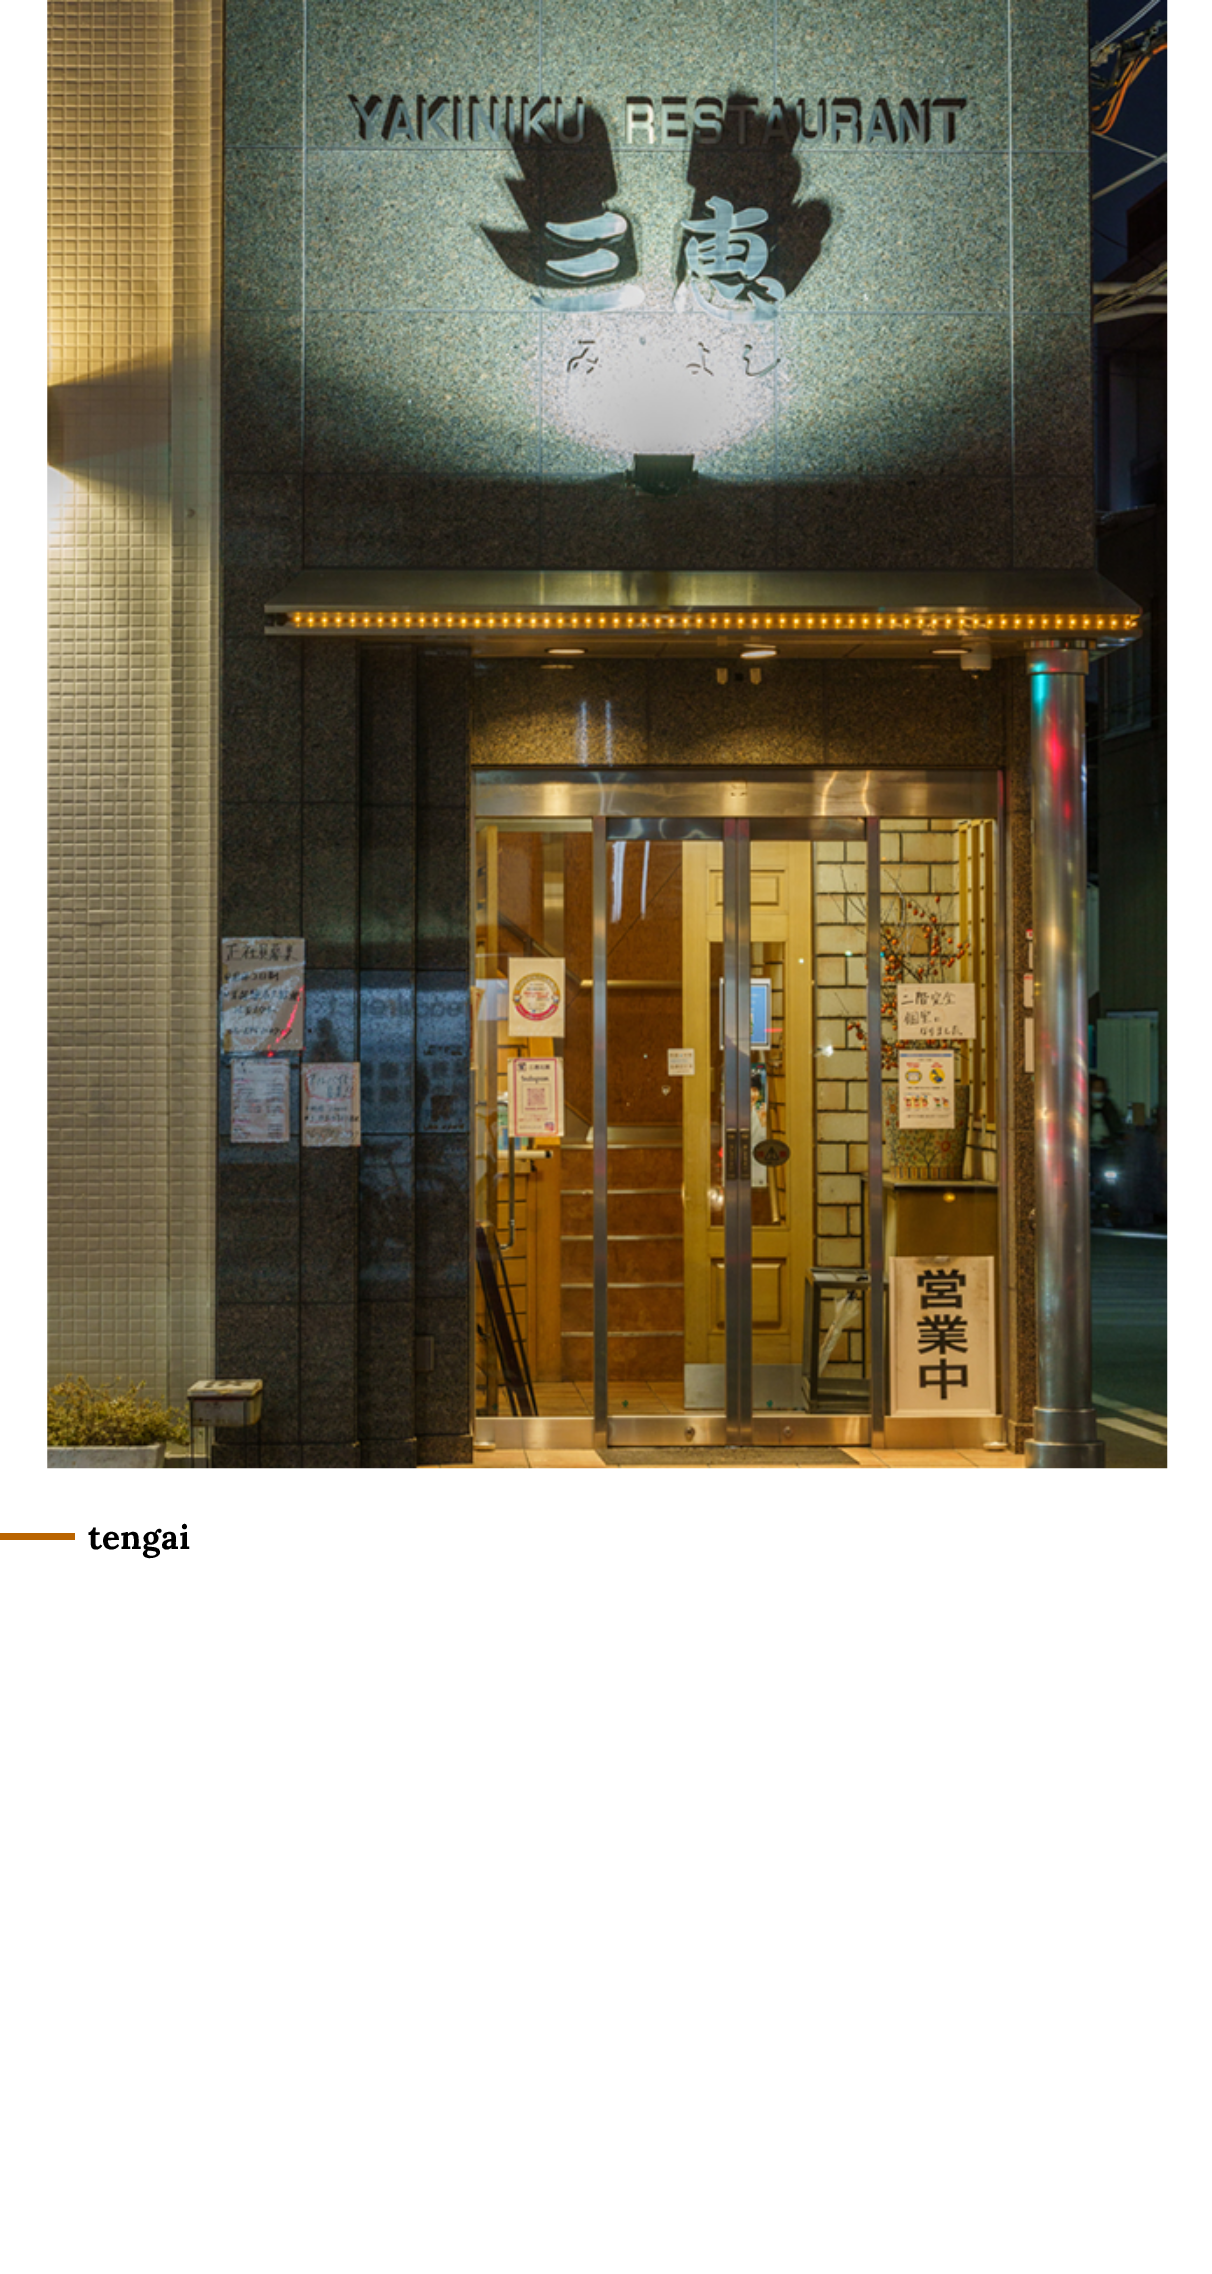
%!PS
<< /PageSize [1212 2274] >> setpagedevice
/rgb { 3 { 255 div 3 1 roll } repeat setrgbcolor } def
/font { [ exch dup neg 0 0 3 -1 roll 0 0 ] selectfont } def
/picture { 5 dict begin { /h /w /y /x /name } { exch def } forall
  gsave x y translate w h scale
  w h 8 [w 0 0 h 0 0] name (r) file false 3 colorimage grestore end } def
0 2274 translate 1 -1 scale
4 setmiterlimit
255 255 255 rgb
0 0 1212 2274 rectfill
(img_01.rgb) 47 0 1121 1469 picture
186 100 0 rgb
0 1533 75 7 rectfill
/Lora-Bold 33.5 font
0 0 0 rgb
88 1549 moveto 0.25 0 (tengai) ashow
showpage
